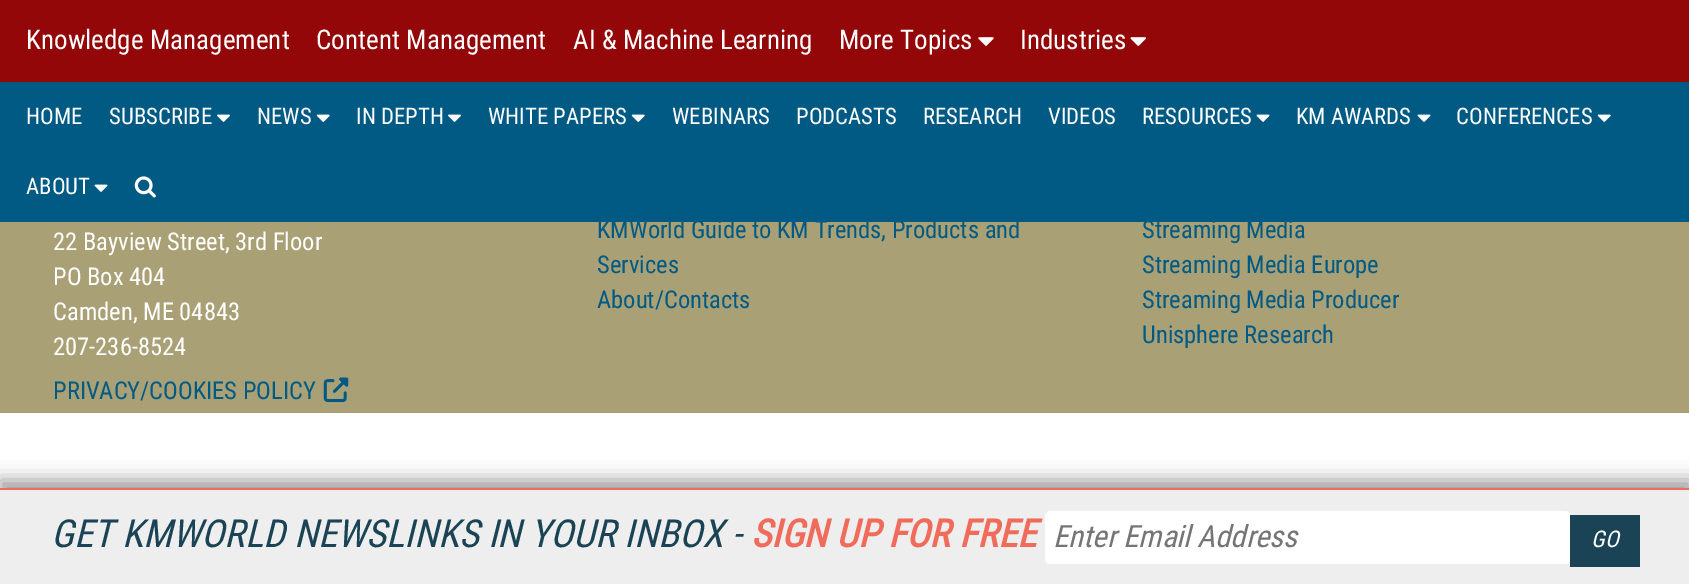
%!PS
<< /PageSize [1689 584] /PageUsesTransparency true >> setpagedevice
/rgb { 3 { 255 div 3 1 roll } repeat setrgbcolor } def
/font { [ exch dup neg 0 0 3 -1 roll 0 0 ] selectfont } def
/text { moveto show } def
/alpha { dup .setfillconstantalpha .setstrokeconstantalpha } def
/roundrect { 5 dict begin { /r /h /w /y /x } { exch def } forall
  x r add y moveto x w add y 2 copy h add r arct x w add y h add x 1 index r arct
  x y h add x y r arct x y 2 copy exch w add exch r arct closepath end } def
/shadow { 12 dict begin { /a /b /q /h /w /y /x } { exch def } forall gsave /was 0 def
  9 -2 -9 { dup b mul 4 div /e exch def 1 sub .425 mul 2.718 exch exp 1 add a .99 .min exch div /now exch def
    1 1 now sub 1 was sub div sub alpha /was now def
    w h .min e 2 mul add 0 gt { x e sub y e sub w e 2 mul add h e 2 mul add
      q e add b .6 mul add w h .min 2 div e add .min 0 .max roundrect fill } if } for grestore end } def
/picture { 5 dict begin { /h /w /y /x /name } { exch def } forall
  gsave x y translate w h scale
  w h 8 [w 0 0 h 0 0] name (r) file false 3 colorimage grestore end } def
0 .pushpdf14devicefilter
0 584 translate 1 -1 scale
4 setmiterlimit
169 160 117 rgb
0 0 1689 584 rectfill
148 7 9 rgb
0 0 1689 82 rectfill
(img_01.rgb) 978 37 16 9 picture
(img_02.rgb) 1130 37 16 9 picture
0 90 132 rgb
0 82 1689 140 rectfill
(img_03.rgb) 217 114 13 8 picture
(img_04.rgb) 316 114 14 8 picture
(img_03.rgb) 448 114 13 8 picture
(img_04.rgb) 631 114 14 8 picture
(img_05.rgb) 1256 114 14 8 picture
(img_05.rgb) 1417 114 14 8 picture
(img_04.rgb) 1597 114 14 8 picture
(img_05.rgb) 94 184 14 8 picture
(img_06.rgb) 134 176 22 22 picture
(img_07.rgb) 323 377 26 26 picture
255 255 255 rgb
0 413 1689 75 rectfill
153 153 153 rgb
0 480 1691 96 0 9 1 shadow
238 238 238 rgb
0 490 1689 94 rectfill
240 107 90 rgb
0 488 1689 2 rectfill
255 255 255 rgb
1045 511 525 53 5 roundrect fill
26 68 85 rgb
1570 515 70 52 rectfill
/RobotoCondensed-Regular 27.1 font
255 255 255 rgb
(Knowledge Management) 26 49 text
(Content Management) 316 49 text
(AI & Machine Learning) 573 49 text
(More Topics) 839 49 text
(Industries) 1020 49 text
/RobotoCondensed-Regular 22.75 font
(HOME) 26 124 text
(SUBSCRIBE) 109 124 text
(NEWS) 257 124 text
(IN DEPTH) 356 124 text
(WHITE PAPERS) 488 124 text
(WEBINARS) 672 124 text
(PODCASTS) 796 124 text
(RESEARCH) 923 124 text
(VIDEOS) 1048 124 text
(RESOURCES) 1142 124 text
(KM AWARDS) 1296 124 text
(CONFERENCES) 1456 124 text
(ABOUT) 26 194 text
/RobotoCondensed-Regular 24.5 font
(22 Bayview Street, 3rd Floor) 53 250 text
(PO Box 404) 53 285 text
(Camden, ME 04843) 53 320 text
(207-236-8524) 53 355 text
0 90 132 rgb
(PRIVACY/COOKIES POLICY) 53 399 text
(KMWorld Guide to KM Trends, Products and) 597 238 text
(Services) 597 273 text
(About/Contacts) 597 308 text
(Streaming Media) 1142 238 text
(Streaming Media Europe) 1142 273 text
(Streaming Media Producer) 1142 308 text
(Unisphere Research) 1142 343 text
/RobotoCondensed-Italic 38.5 font
26 68 85 rgb
(GET KMWORLD NEWSLINKS IN YOUR INBOX -) 51 547 text
/RobotoCondensed-BoldItalic 38.5 font
240 107 90 rgb
(SIGN UP FOR FREE) 751 547 text
/RobotoCondensed-Italic 30.75 font
117 117 117 rgb
(Enter Email Address) 1053 547 text
/RobotoCondensed-Italic 23 font
255 255 255 rgb
(GO) 1591 547 text
.poppdf14devicefilter showpage
